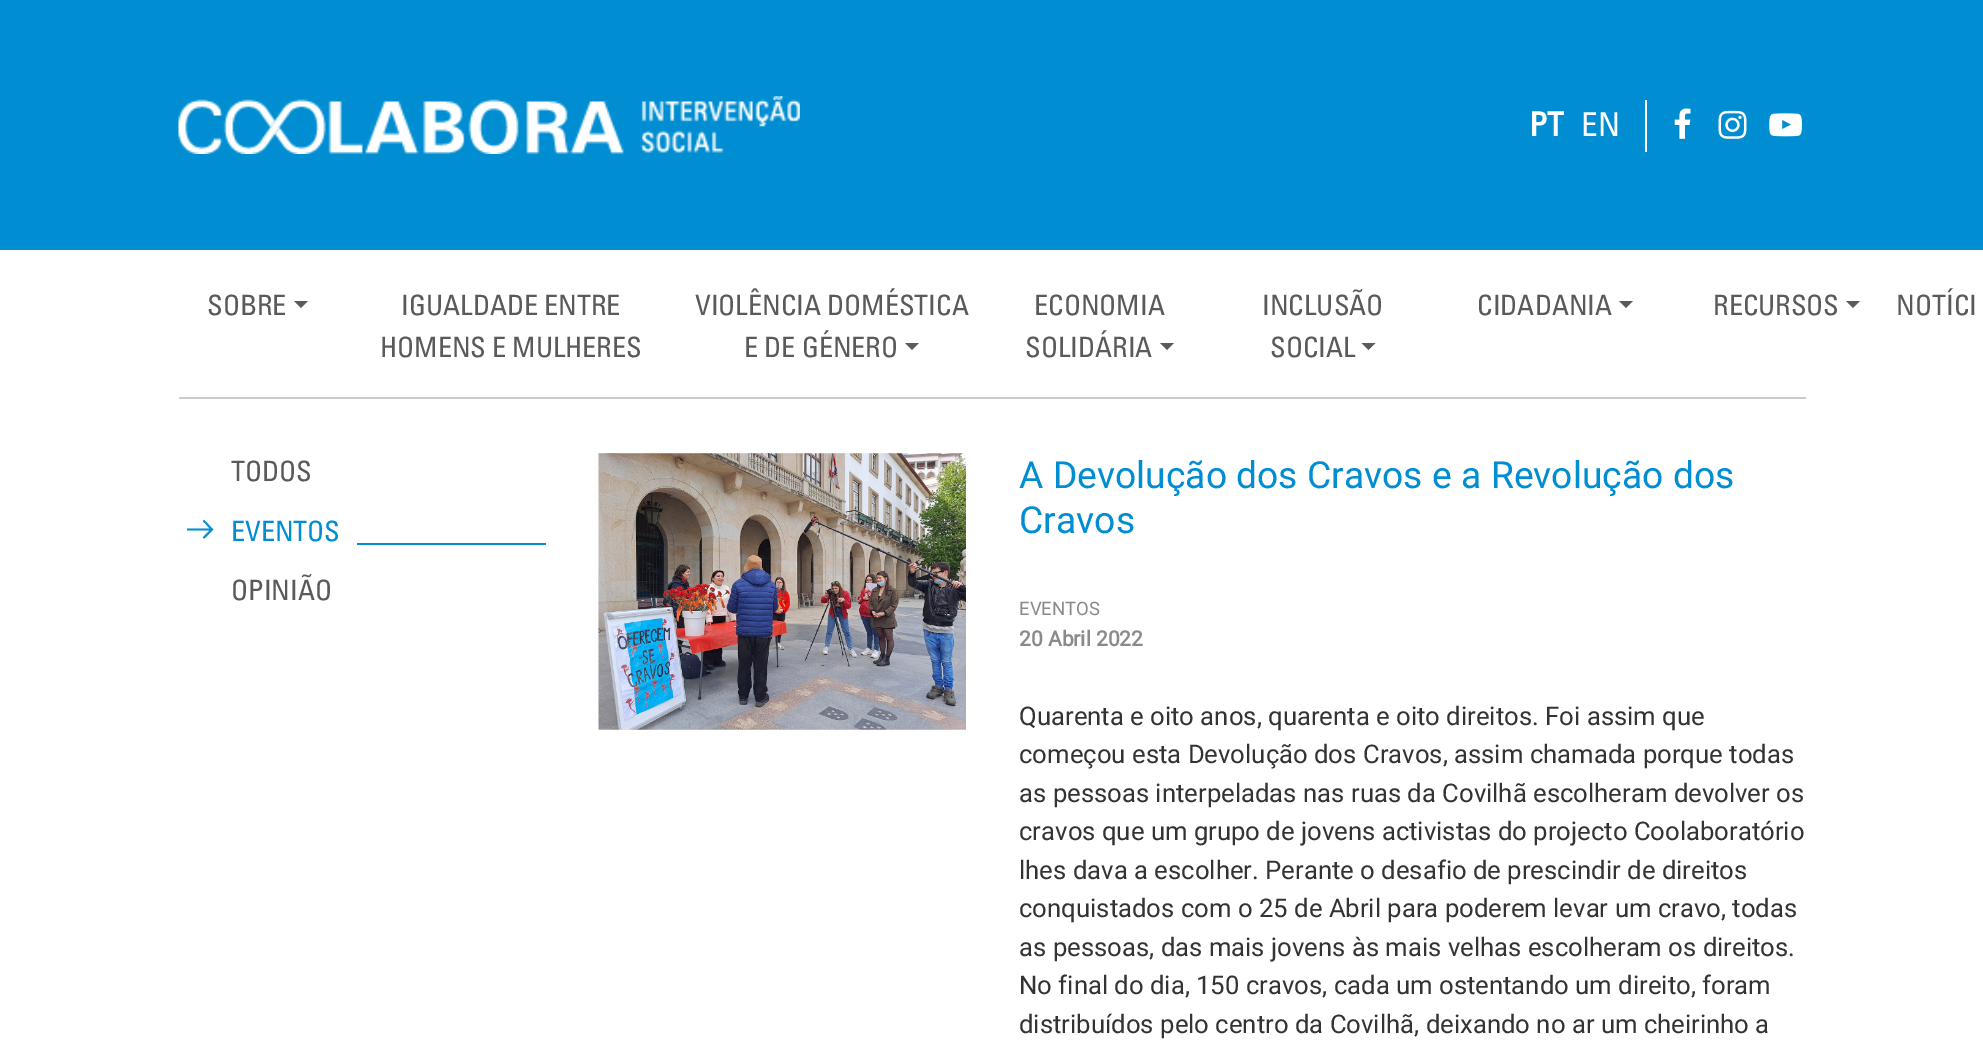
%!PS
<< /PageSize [1983 1064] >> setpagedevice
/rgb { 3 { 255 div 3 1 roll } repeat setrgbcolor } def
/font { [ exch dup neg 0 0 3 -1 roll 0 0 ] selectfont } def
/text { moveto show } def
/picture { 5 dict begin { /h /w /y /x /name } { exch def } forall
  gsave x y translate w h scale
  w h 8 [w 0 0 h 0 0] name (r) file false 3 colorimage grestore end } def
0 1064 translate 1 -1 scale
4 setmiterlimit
255 255 255 rgb
0 0 1983 1064 rectfill
0 141 210 rgb
0 0 1983 250 rectfill
(img_01.rgb) 178 96 622 58 picture
255 255 255 rgb
1645 100 2 52 rectfill
(img_02.rgb) 1674 108 17 31 picture
(img_03.rgb) 1718 110 29 29 picture
(img_04.rgb) 1769 113 33 24 picture
90 90 90 rgb
294 301 moveto 14 0 rlineto -7 7 rlineto closepath fill
905 343 moveto 14 0 rlineto -7 7 rlineto closepath fill
1160 343 moveto 14 0 rlineto -7 7 rlineto closepath fill
1361.5 343 moveto 14 0 rlineto -7 7 rlineto closepath fill
1619 301 moveto 14 0 rlineto -7 7 rlineto closepath fill
1846 301 moveto 14 0 rlineto -7 7 rlineto closepath fill
204 204 204 rgb
179 397 1627 2 rectfill
0 141 210 rgb
1.8 setlinewidth
203.5 538 moveto 8.5 -8.5 rlineto -8.5 -9 rlineto 212 529.5 moveto -25 0 rlineto stroke
357 543 189 2 rectfill
(img_05.rgb) 598 453 368 277 picture
/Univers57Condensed-Bold 33 font
255 255 255 rgb
(PT) 1529 136 text
/Univers57Condensed-Regular 33 font
(EN) 1581 136 text
/Univers57Condensed-Regular 28 font
90 90 90 rgb
(SOBRE) 207 315 text
(IGUALDADE ENTRE) 401 315 text
(HOMENS E MULHERES) 380 357 text
(VIOLÊNCIA DOMÉSTICA) 695 315 text
(E DE GÉNERO) 744 357 text
(ECONOMIA) 1034 315 text
(SOLIDÁRIA) 1025 357 text
(INCLUSÃO) 1262 315 text
(SOCIAL) 1270 357 text
(CIDADANIA) 1477 315 text
(RECURSOS) 1713 315 text
(NOTÍCI) 1896 315 text
(TODOS) 231 481 text
0 141 210 rgb
(EVENTOS) 231 541 text
90 90 90 rgb
(OPINIÃO) 231 600 text
/Roboto-Regular 37.3 font
0 141 210 rgb
(A Devolução dos Cravos e a Revolução dos) 1019 488 text
(Cravos) 1019 533 text
/Roboto-Regular 18.5 font
138 138 138 rgb
(EVENTOS) 1019 615 text
/Roboto-Bold 21 font
(20 Abril 2022) 1019 646 text
/Roboto-Regular 25.7 font
51 51 51 rgb
(Quarenta e oito anos, quarenta e oito direitos. Foi assim que) 1019 725 text
(começou esta Devolução dos Cravos, assim chamada porque todas) 1019 763 text
(as pessoas interpeladas nas ruas da Covilhã escolheram devolver os) 1019 802 text
(cravos que um grupo de jovens activistas do projecto Coolaboratório) 1019 840 text
(lhes dava a escolher. Perante o desafio de prescindir de direitos) 1019 879 text
(conquistados com o 25 de Abril para poderem levar um cravo, todas) 1019 917 text
(as pessoas, das mais jovens às mais velhas escolheram os direitos.) 1019 956 text
(No final do dia, 150 cravos, cada um ostentando um direito, foram) 1019 994 text
(distribuídos pelo centro da Covilhã, deixando no ar um cheirinho a) 1019 1033 text
showpage
